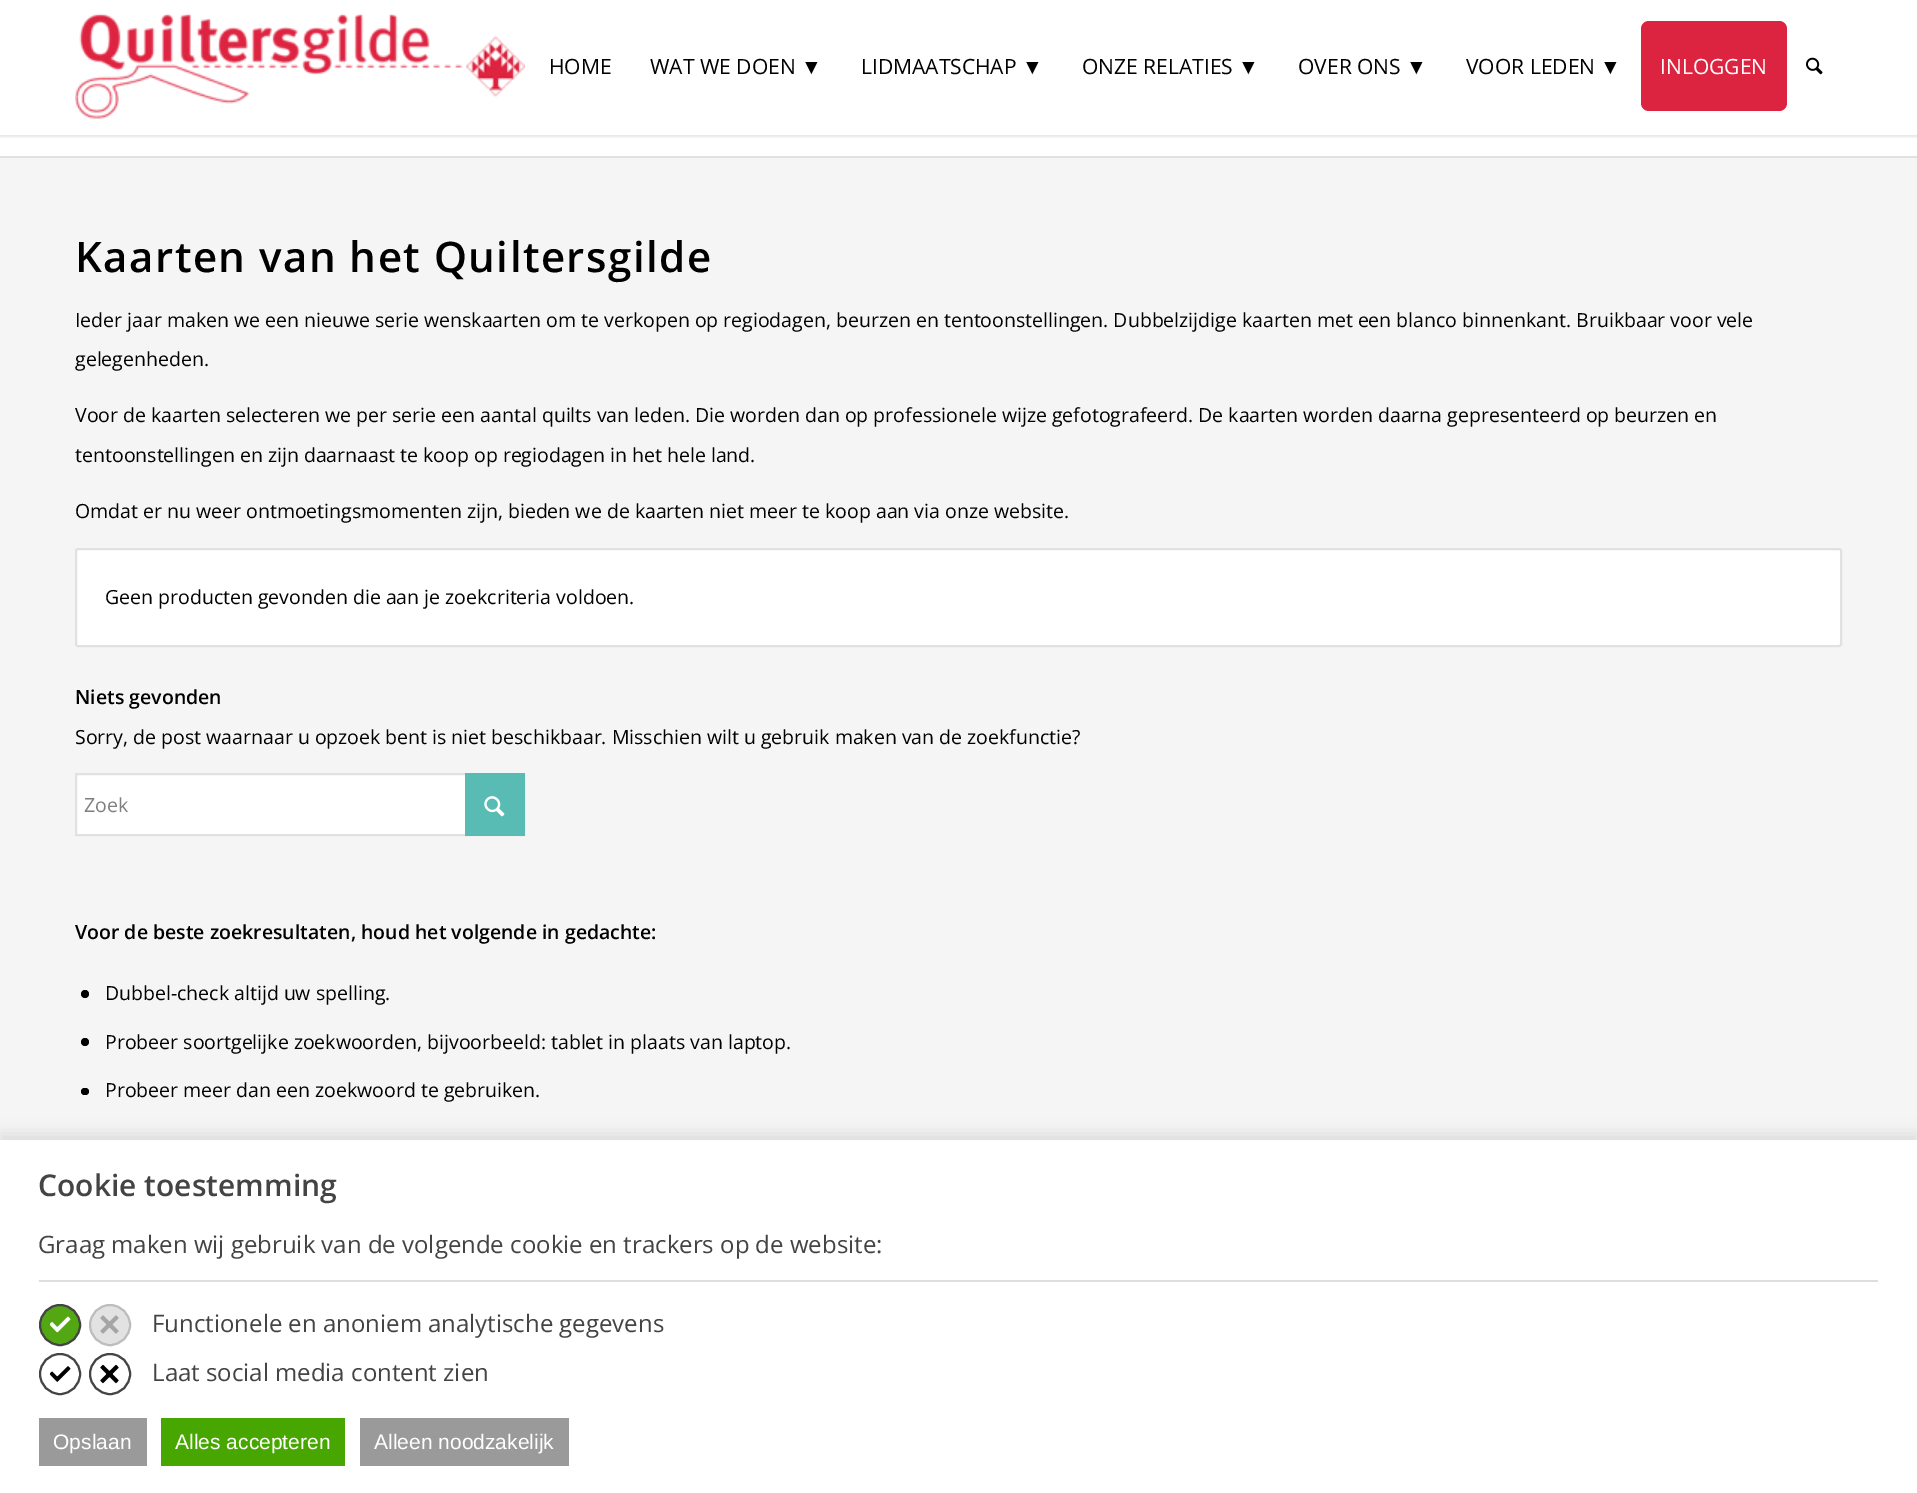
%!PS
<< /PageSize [1917 1493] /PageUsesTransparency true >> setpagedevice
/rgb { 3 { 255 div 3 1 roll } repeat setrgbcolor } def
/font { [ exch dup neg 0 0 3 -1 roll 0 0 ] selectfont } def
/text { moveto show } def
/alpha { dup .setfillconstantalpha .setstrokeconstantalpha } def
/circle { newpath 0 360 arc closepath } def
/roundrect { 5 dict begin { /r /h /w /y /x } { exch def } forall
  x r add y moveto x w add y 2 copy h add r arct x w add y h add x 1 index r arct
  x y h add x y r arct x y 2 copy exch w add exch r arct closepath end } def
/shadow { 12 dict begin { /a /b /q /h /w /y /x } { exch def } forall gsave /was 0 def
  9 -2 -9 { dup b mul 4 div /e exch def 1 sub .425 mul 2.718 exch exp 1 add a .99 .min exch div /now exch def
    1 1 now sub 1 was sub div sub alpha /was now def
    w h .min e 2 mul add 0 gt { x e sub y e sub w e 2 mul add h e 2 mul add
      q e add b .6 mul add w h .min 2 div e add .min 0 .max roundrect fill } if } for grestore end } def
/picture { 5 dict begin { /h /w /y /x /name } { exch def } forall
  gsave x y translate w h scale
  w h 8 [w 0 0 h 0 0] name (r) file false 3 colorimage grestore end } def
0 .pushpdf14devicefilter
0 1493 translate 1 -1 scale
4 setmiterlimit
255 255 255 rgb
0 0 1917 1493 rectfill
gsave
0 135 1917 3 rectclip
0 0 0 rgb
-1 -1 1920 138 0 1.5 0.1 shadow
grestore
(img_01.rgb) 75 13 450 106 picture
220 36 65 rgb
1641 21 146 90 8 roundrect fill
(img_02.rgb) 1806 57 17 18 picture
245 245 245 rgb
0 158 1917 982 rectfill
225 225 225 rgb
0 156 1917 2 rectfill
255 255 255 rgb
76 549 1765 97 2 roundrect gsave fill grestore
225 225 225 rgb
2 setlinewidth
stroke
255 255 255 rgb
77 775 388 59 rectfill
225 225 225 rgb
76 774 448 61 rectstroke
88 188 180 rgb
465 773 60 63 rectfill
(img_03.rgb) 484 796 21 21 picture
0 0 0 rgb
85 994 4 circle fill
85 1042 4 circle fill
81 1088 8 7 3.5 roundrect fill
0 1134 1917 354 0 7.5 0.1 shadow
255 255 255 rgb
0 1140 1917 353 rectfill
222 222 222 rgb
39 1280 1839 2 rectfill
83 167 19 rgb
60 1325 20 circle gsave fill grestore
68 68 68 rgb
stroke
(img_04.rgb) 50 1316 21 17 picture
226 226 226 rgb
110 1325 20 circle gsave fill grestore
189 189 189 rgb
stroke
(img_05.rgb) 100 1315 19 19 picture
68 68 68 rgb
60 1374 20 circle stroke
(img_06.rgb) 50 1366 21 16 picture
110 1374 20 circle stroke
(img_07.rgb) 100 1364 19 20 picture
154 154 154 rgb
39 1418 108 48 rectfill
71 167 0 rgb
161 1418 184 48 rectfill
154 154 154 rgb
360 1418 209 48 rectfill
/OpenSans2-Regular 21 font
0 0 0 rgb
(HOME) 549 74 text
(WAT WE DOEN) 650 74 text
/LiberationSans-Regular 21 font
(▼) 801 74 text
/OpenSans2-Regular 21 font
(LIDMAATSCHAP) 861 74 text
/LiberationSans-Regular 21 font
(▼) 1022 74 text
/OpenSans2-Regular 21 font
(ONZE RELATIES) 1082 74 text
/LiberationSans-Regular 21 font
(▼) 1238 74 text
/OpenSans2-Regular 21 font
(OVER ONS) 1298 74 text
/LiberationSans-Regular 21 font
(▼) 1406 74 text
/OpenSans2-Regular 21 font
(VOOR LEDEN) 1466 74 text
/LiberationSans-Regular 21 font
(▼) 1600 74 text
/OpenSans2-Regular 21 font
255 255 255 rgb
(INLOGGEN) 1660 74 text
/OpenSans-SemiBold 42 font
0 0 0 rgb
75 272 moveto 1.5 0 (Kaarten van het Quiltersgilde) ashow
/OpenSans-Regular 19.5 font
(Ieder jaar maken we een nieuwe serie wenskaarten om te verkopen op regiodagen, beurzen en tentoonstellingen. Dubbelzijdige kaarten met een blanco binnenkant. Bruikbaar voor vele) 75 327 text
(gelegenheden.) 75 366 text
(Voor de kaarten selecteren we per serie een aantal quilts van leden. Die worden dan op professionele wijze gefotografeerd. De kaarten worden daarna gepresenteerd op beurzen en) 75 422 text
(tentoonstellingen en zijn daarnaast te koop op regiodagen in het hele land.) 75 462 text
(Omdat er nu weer ontmoetingsmomenten zijn, bieden we de kaarten niet meer te koop aan via onze website.) 75 518 text
(Geen producten gevonden die aan je zoekcriteria voldoen.) 105 604 text
/OpenSans2-SemiBold 19.5 font
(Niets gevonden) 75 704 text
/OpenSans-Regular 19.5 font
(Sorry, de post waarnaar u opzoek bent is niet beschikbaar. Misschien wilt u gebruik maken van de zoekfunctie?) 75 744 text
128 128 128 rgb
(Zoek) 84 812 text
/OpenSans2-SemiBold 19.5 font
0 0 0 rgb
(Voor de beste zoekresultaten, houd het volgende in gedachte:) 75 939 text
/OpenSans-Regular 19.5 font
(Dubbel-check altijd uw spelling.) 105 1000 text
(Probeer soortgelijke zoekwoorden, bijvoorbeeld: tablet in plaats van laptop.) 105 1049 text
(Probeer meer dan een zoekwoord te gebruiken.) 105 1097 text
/OpenSans-SemiBold 30 font
68 68 68 rgb
(Cookie toestemming) 38 1196 text
/OpenSans-Regular 24 font
(Graag maken wij gebruik van de volgende cookie en trackers op de website:) 38 1253 text
(Functionele en anoniem analytische gegevens) 152 1332 text
(Laat social media content zien) 152 1381 text
/LiberationSans-Regular 21 font
255 255 255 rgb
(Opslaan) 53 1449 text
(Alles accepteren) 175 1449 text
(Alleen noodzakelijk) 374 1449 text
.poppdf14devicefilter showpage
